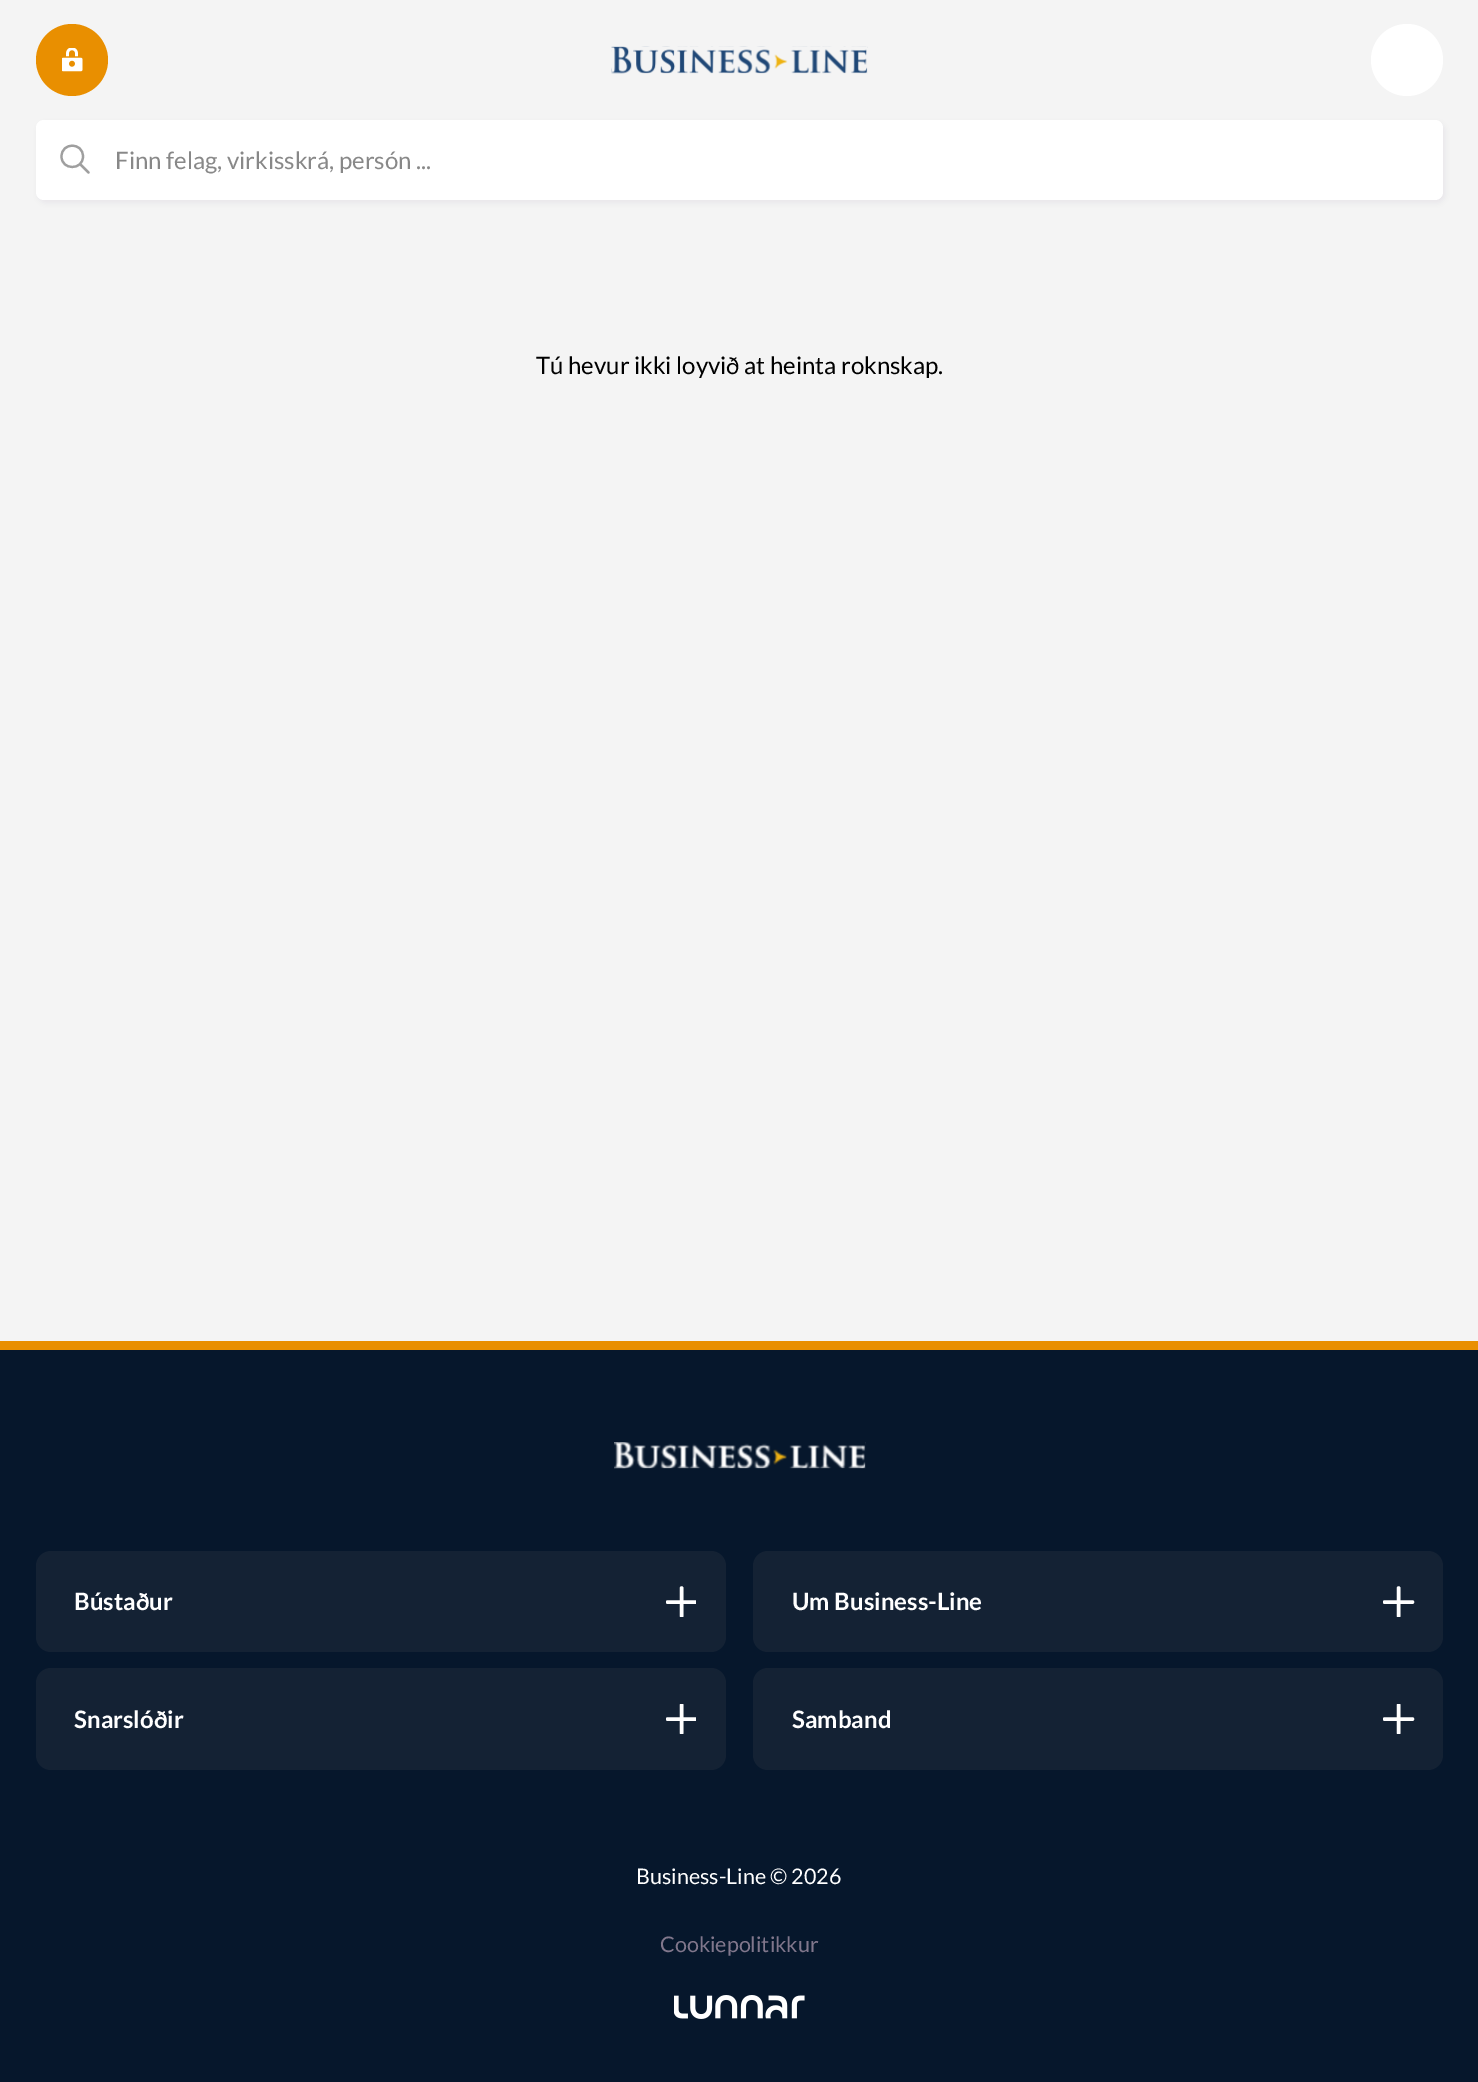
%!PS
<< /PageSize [1478 2082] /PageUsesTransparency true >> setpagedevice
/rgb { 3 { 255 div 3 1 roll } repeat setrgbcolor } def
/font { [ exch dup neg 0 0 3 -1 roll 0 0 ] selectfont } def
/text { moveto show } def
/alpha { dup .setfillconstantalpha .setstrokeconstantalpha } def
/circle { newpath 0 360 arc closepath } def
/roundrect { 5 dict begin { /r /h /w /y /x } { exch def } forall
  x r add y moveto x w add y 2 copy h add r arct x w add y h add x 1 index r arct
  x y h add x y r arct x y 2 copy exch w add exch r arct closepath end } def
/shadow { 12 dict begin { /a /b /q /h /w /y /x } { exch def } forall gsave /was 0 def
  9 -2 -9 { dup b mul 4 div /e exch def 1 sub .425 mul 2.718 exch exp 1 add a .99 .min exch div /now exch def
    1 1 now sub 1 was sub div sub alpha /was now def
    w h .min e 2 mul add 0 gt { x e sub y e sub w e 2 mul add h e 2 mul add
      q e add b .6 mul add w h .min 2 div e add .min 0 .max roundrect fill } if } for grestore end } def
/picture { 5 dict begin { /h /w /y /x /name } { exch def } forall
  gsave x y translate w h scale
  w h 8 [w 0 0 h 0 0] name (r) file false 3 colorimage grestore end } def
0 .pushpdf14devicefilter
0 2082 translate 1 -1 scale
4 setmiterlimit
244 244 244 rgb
0 0 1478 2082 rectfill
233 143 0 rgb
72 60 36 circle fill
(img_01.rgb) 62 48 21 24 picture
(img_02.rgb) 611 46 257 28 picture
255 255 255 rgb
1407 60 36 circle fill
34 17 68 rgb
38 123 1407 80 8 3 0.05 shadow
255 255 255 rgb
36 120 1407 80 8 roundrect fill
159 159 159 rgb
2.2 setlinewidth
1 setlinecap
1 setlinejoin
88.5 172.5 moveto -8.5 -8.5 rlineto 83 156.5 moveto 0 14 -21.5 14 -21.5 0 rcurveto 0 -14.5 21.5 -14.5 21.5 0 rcurveto closepath stroke
6 23 44 rgb
0 1350 1478 732 rectfill
233 143 0 rgb
0 1341 1478 9 rectfill
(img_03.rgb) 614 1442 252 27 picture
20 34 52 rgb
36 1551 690 101 15 roundrect fill
gsave
666 1586 30 31 rectclip
255 255 255 rgb
3.5 setlinewidth
681.5 1588 moveto 0 28 rlineto 667.5 1602 moveto 28 0 rlineto stroke
grestore
753 1551 690 101 15 roundrect fill
gsave
1383 1586 32 31 rectclip
255 255 255 rgb
3.5 setlinewidth
1398.5 1588 moveto 0 28 rlineto 1384.5 1602 moveto 28 0 rlineto stroke
grestore
36 1668 690 102 15 roundrect fill
gsave
666 1704 30 30 rectclip
255 255 255 rgb
3.5 setlinewidth
681.5 1705 moveto 0 28 rlineto 667.5 1719 moveto 28 0 rlineto stroke
grestore
753 1668 690 102 15 roundrect fill
gsave
1383 1704 32 30 rectclip
255 255 255 rgb
3.5 setlinewidth
1398.5 1705 moveto 0 28 rlineto 1384.5 1719 moveto 28 0 rlineto stroke
grestore
(img_04.rgb) 674 1995 131 24 picture
/Lato-Regular 24 font
136 136 136 rgb
(Finn felag, virkisskrá, persón ...) 115 169 text
0 0 0 rgb
(Tú hevur ikki loyvið at heinta roknskap.) 536 374 text
/Lato-Bold 24 font
255 255 255 rgb
(Bústaður) 74 1610 text
(Um Business-Line) 792 1610 text
(Snarslóðir) 74 1728 text
(Samband) 792 1728 text
/Lato-Regular 21.5 font
(Business-Line © 2026) 636 1884 text
129 119 140 rgb
(Cookiepolitikkur) 660 1952 text
.poppdf14devicefilter showpage
